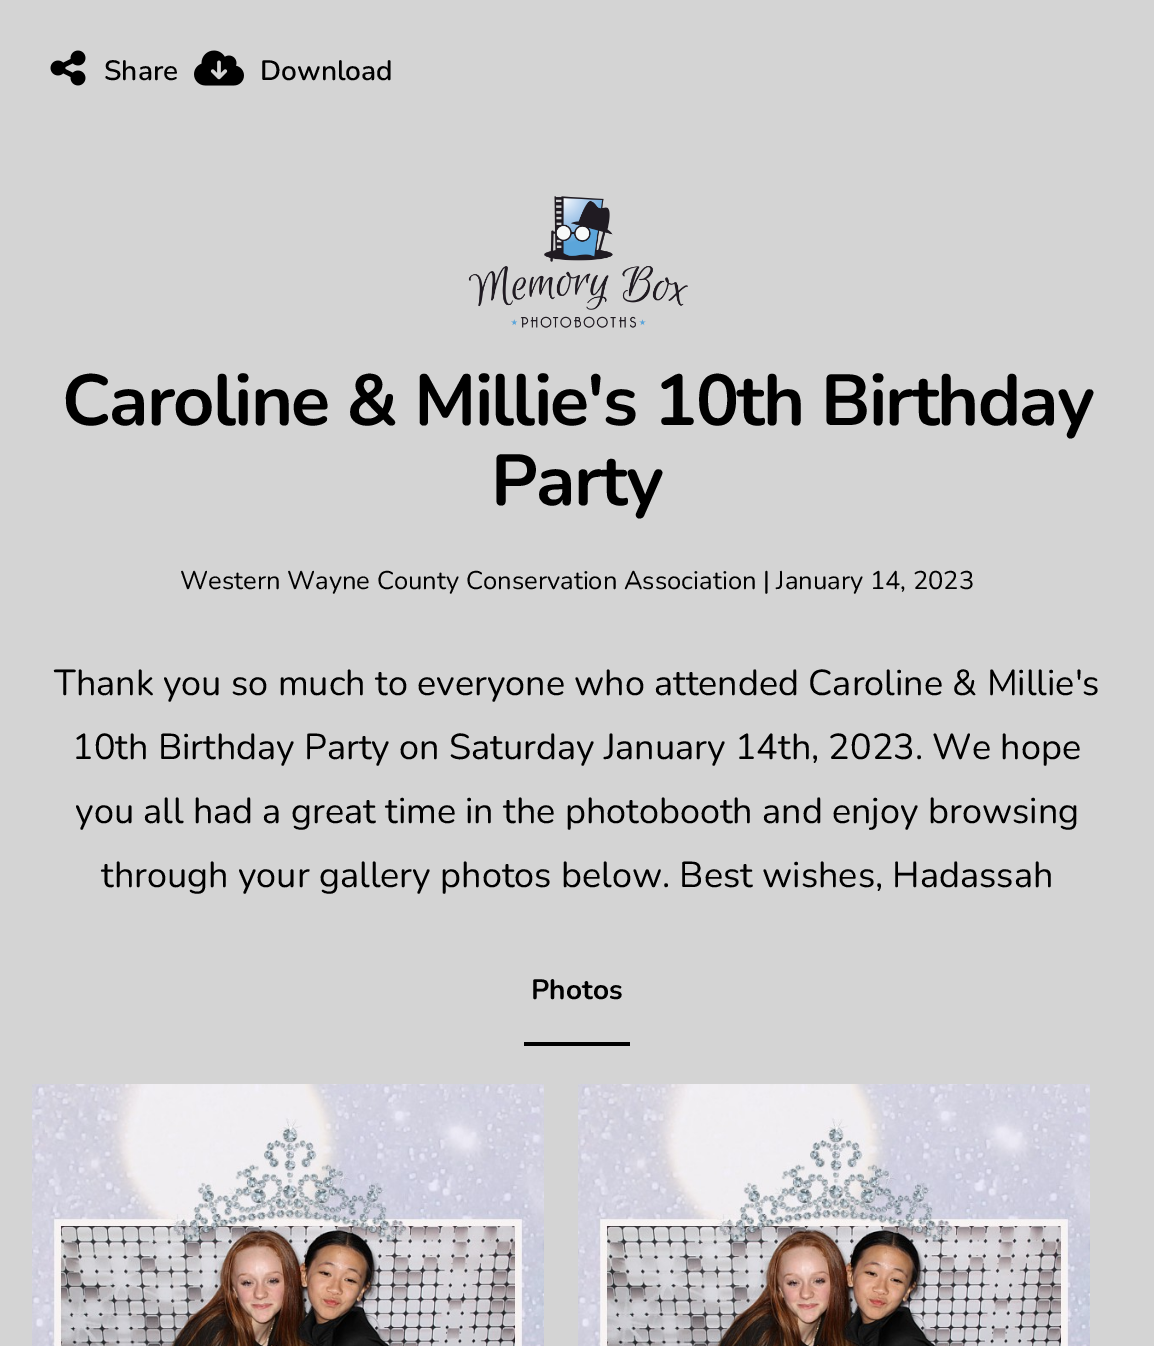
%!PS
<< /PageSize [1154 1346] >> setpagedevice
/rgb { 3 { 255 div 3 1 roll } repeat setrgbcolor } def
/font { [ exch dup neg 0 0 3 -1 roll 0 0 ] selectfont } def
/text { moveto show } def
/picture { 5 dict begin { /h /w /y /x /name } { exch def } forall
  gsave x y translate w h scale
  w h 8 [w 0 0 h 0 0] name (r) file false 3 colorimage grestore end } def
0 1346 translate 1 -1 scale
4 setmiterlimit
212 212 212 rgb
0 0 1154 1346 rectfill
(img_01.rgb) 50 50 36 36 picture
(img_02.rgb) 194 50 50 36 picture
(img_03.rgb) 468 196 220 132 picture
0 0 0 rgb
524 1042 106 4 rectfill
(img_04.rgb) 32 1084 512 262 picture
(img_04.rgb) 578 1084 512 262 picture
/Nunito-ExtraLight 28 font
(Share) 104 80 text
(Download) 260 80 text
/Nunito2-ExtraLight 72 font
62 425 moveto -1.8 0 (Caroline & Millie's 10th Birthday) ashow
491 505 moveto -1.8 0 (Party) ashow
/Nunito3-ExtraLight 25.6 font
(Western Wayne County Conservation Association | January 14, 2023) 180 589 text
/Nunito3-ExtraLight 36 font
(Thank you so much to everyone who attended Caroline & Millie's) 54 695 text
(10th Birthday Party on Saturday January 14th, 2023. We hope) 72 759 text
(you all had a great time in the photobooth and enjoy browsing) 75 823 text
(through your gallery photos below. Best wishes, Hadassah) 101 887 text
/Nunito2-ExtraLight 28 font
(Photos) 531 999 text
showpage
